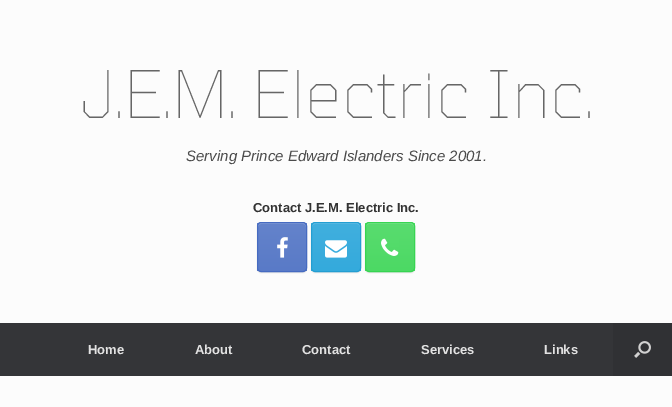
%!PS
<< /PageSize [672 407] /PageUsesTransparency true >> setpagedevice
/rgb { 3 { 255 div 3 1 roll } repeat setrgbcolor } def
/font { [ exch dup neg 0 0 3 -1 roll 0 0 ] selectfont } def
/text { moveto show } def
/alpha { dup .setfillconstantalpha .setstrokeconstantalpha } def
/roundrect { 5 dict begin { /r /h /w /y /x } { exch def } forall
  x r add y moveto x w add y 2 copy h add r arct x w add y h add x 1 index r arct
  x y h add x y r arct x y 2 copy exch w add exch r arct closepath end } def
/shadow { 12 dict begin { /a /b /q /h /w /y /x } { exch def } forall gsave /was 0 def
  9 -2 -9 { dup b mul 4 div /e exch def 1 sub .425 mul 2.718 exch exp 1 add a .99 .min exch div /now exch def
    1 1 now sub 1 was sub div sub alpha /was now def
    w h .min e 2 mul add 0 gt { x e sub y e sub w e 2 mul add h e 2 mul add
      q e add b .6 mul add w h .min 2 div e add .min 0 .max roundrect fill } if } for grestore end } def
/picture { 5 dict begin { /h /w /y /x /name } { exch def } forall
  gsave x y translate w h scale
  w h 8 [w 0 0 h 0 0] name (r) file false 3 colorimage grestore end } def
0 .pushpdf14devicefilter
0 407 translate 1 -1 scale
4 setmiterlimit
252 252 252 rgb
0 0 672 407 rectfill
0 0 0 rgb
257 223 50 50 4 0.5 0.1 shadow
gsave
257 222 50 50 4 roundrect clip newpath
gsave 257 223 moveto 50 0 rlineto 0 48 rlineto -50 0 rlineto closepath clip newpath
<< /ShadingType 2 /ColorSpace /DeviceRGB /Coords [258 271 258 223] /Extend [true true] /Function << /FunctionType 2 /Domain [0 1] /C0 [0.349 0.478 0.78] /C1 [0.392 0.514 0.796] /N 1 >> >> shfill grestore
grestore
131 156 213 rgb
261 224 moveto 42 0 rlineto 2 0 3 1 3 3 rcurveto 0 -6 -6 -4 -10 -4 rcurveto -28 0 rlineto -4 0 -10 -2 -10 4 rcurveto 0 -2 1 -3 3 -3 rcurveto closepath fill
70 107 193 rgb
257.5 222.5 49 49 3.5 roundrect stroke
(img_01.rgb) 277 237 11 21 picture
0 0 0 rgb
311 223 50 50 4 0.5 0.1 shadow
gsave
311 222 50 50 4 roundrect clip newpath
gsave 311 223 moveto 50 0 rlineto 0 48 rlineto -50 0 rlineto closepath clip newpath
<< /ShadingType 2 /ColorSpace /DeviceRGB /Coords [312 271 312 223] /Extend [true true] /Function << /FunctionType 2 /Domain [0 1] /C0 [0.204 0.667 0.863] /C1 [0.255 0.686 0.871] /N 1 >> >> shfill grestore
grestore
103 191 229 rgb
315 224 moveto 42 0 rlineto 2 0 3 1 3 3 rcurveto 0 -6 -6 -4 -10 -4 rcurveto -28 0 rlineto -4 0 -10 -2 -10 4 rcurveto 0 -2 1 -3 3 -3 rcurveto closepath fill
36 158 210 rgb
311.5 222.5 49 49 3.5 roundrect stroke
(img_02.rgb) 325 240 22 18 picture
0 0 0 rgb
365 223 50 50 4 0.5 0.1 shadow
gsave
365 222 50 50 4 roundrect clip newpath
gsave 365 223 moveto 50 0 rlineto 0 48 rlineto -50 0 rlineto closepath clip newpath
<< /ShadingType 2 /ColorSpace /DeviceRGB /Coords [366 271 366 223] /Extend [true true] /Function << /FunctionType 2 /Domain [0 1] /C0 [0.298 0.851 0.392] /C1 [0.349 0.863 0.435] /N 1 >> >> shfill grestore
grestore
122 227 140 rgb
369 224 moveto 42 0 rlineto 2 0 3 1 3 3 rcurveto 0 -6 -6 -4 -10 -4 rcurveto -28 0 rlineto -4 0 -10 -2 -10 4 rcurveto 0 -2 1 -3 3 -3 rcurveto closepath fill
55 213 82 rgb
365.5 222.5 49 49 3.5 roundrect stroke
(img_03.rgb) 381 238 18 18 picture
52 53 56 rgb
0 323 613 53 rectfill
48 49 52 rgb
613 323 59 53 rectfill
(img_04.rgb) 634 341 17 17 picture
/Tomorrow-Thin 65 font
102 102 102 rgb
(J.E.M. Electric Inc.) 79 118 text
/LiberationSans-Italic 15 font
75 75 75 rgb
(Serving Prince Edward Islanders Since 2001.) 186 161 text
/LiberationSans-Bold 13 font
51 51 51 rgb
(Contact J.E.M. Electric Inc.) 253 212 text
226 226 226 rgb
(Home) 88 354 text
(About) 195 354 text
(Contact) 302 354 text
(Services) 421 354 text
(Links) 544 354 text
.poppdf14devicefilter showpage
